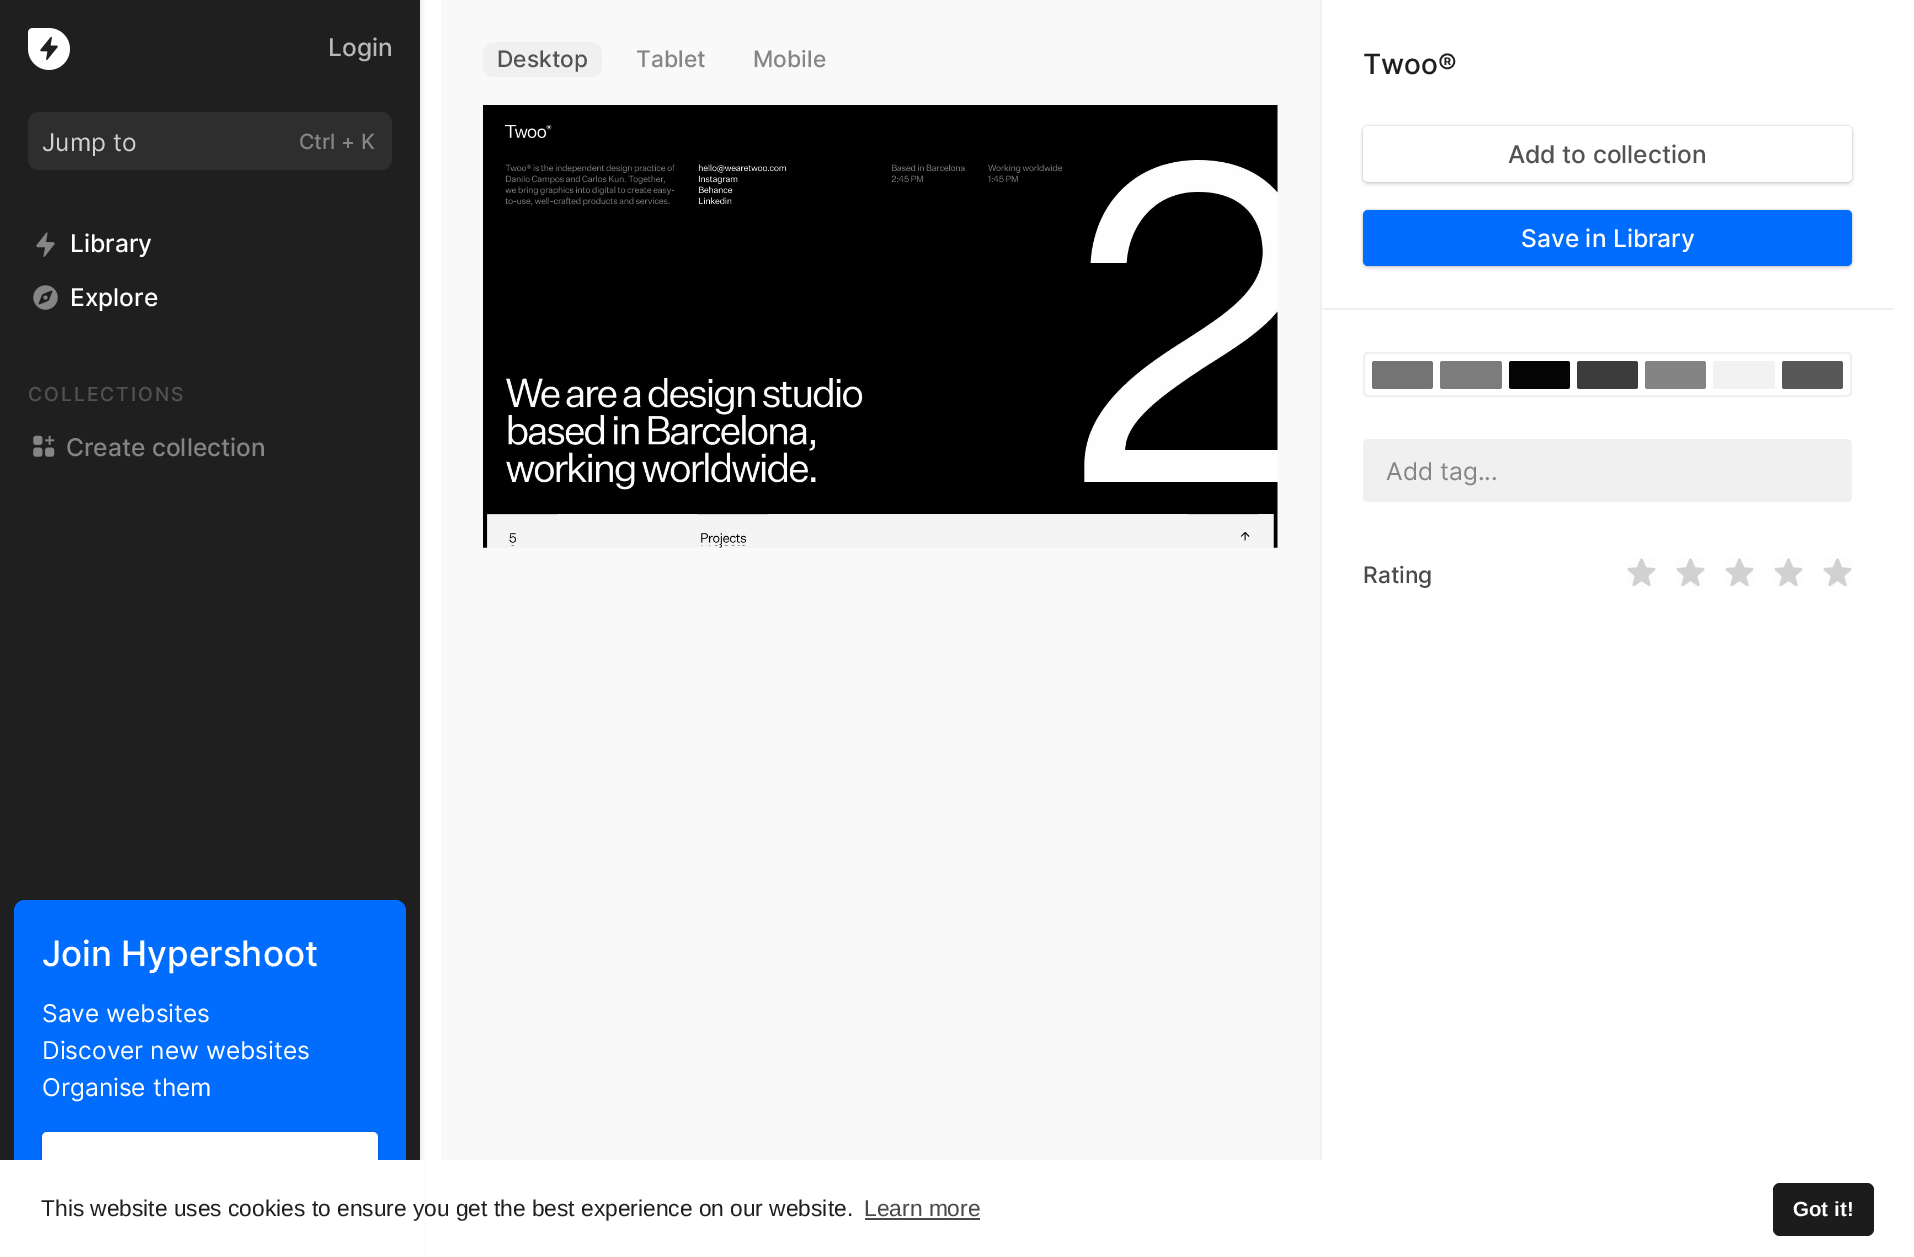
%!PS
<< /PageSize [1914 1257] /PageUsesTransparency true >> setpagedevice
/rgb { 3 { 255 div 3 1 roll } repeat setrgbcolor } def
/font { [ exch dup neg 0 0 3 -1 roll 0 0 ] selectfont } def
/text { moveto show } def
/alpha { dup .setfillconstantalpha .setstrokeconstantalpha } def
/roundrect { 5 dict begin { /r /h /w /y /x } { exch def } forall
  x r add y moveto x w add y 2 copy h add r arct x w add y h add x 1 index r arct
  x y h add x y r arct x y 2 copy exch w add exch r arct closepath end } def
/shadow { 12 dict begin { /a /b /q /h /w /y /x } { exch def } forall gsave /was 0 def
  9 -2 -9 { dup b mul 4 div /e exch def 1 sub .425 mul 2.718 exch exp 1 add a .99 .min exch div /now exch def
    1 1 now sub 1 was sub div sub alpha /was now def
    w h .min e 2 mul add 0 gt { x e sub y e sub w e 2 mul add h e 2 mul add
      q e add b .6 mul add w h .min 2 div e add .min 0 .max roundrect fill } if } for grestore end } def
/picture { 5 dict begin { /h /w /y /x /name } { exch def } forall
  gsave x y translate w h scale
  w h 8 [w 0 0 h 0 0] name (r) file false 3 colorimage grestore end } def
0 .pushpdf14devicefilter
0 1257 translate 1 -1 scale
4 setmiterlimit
255 255 255 rgb
0 0 1914 1257 rectfill
24 30 39 rgb
2 0 420 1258 0 2 0.1 shadow
31 31 31 rgb
0 0 420 1160 rectfill
(img_01.rgb) 28 28 42 42 picture
46 46 46 rgb
28 112 364 58 11 roundrect fill
(img_02.rgb) 36 232 19 25 picture
(img_03.rgb) 33 285 25 25 picture
(img_04.rgb) 33 435 22 22 picture
0 109 255 rgb
14 900 392 316 11 roundrect fill
24 30 39 rgb
42 1132 336 56 5 1 0.25 shadow
42 1134 336 56 5 2 0.15 shadow
255 255 255 rgb
42 1132 336 56 5 roundrect fill
249 249 249 rgb
441 0 879 1160 rectfill
240 240 240 rgb
483 42 119 35 11 roundrect fill
(img_05.rgb) 483 105 795 443 picture
1320 0 2 1160 rectfill
1321 308 573 2 rectfill
24 30 39 rgb
1363 126 489 56 5 1 0.25 shadow
1363 128 489 56 5 2 0.15 shadow
255 255 255 rgb
1363 126 489 56 5 roundrect fill
24 30 39 rgb
1363 210 489 56 5 1 0.25 shadow
1363 212 489 56 5 2 0.15 shadow
0 109 255 rgb
1363 210 489 56 5 roundrect fill
240 240 240 rgb
2 setlinewidth
1364 353 487 43 4 roundrect stroke
116 116 116 rgb
1372 361 61 28 2.5 roundrect fill
124 124 124 rgb
1440 361 62 28 2.5 roundrect fill
4 4 4 rgb
1509 361 61 28 2.5 roundrect fill
60 60 60 rgb
1577 361 61 28 2.5 roundrect fill
132 132 132 rgb
1645 361 61 28 2.5 roundrect fill
242 242 242 rgb
1713 361 62 28 2.5 roundrect fill
88 88 88 rgb
1782 361 61 28 2.5 roundrect fill
240 240 240 rgb
1363 439 489 63 5 roundrect fill
(img_06.rgb) 1627 558 29 29 picture
(img_06.rgb) 1676 558 29 29 picture
(img_06.rgb) 1725 558 29 29 picture
(img_06.rgb) 1774 558 29 29 picture
(img_06.rgb) 1823 558 29 29 picture
255 255 255 rgb
0 1160 424 97 rectfill
73 73 73 rgb
865 1218 115 2 rectfill
28 28 28 rgb
1773 1183 101 53 7 roundrect fill
/Inter-Medium 24.5 font
184 184 184 rgb
(Login) 328 56 text
/Inter-Regular 24.5 font
209 209 209 rgb
(Jump to) 42 151 text
/Inter-Medium 21 font
133 133 133 rgb
(Ctrl + K) 299 149 text
/Inter-Medium 24.5 font
255 255 255 rgb
(Library) 70 252 text
(Explore) 70 306 text
/Inter-Medium 19.25 font
82 82 82 rgb
28 401 moveto 2 0 (COLLECTIONS) ashow
/Inter-Medium 24.5 font
133 133 133 rgb
(Create collection) 66 456 text
/Inter-Medium 35 font
255 255 255 rgb
(Join Hypershoot) 42 966 text
/Inter-Regular 24.5 font
(Save websites) 42 1022 text
(Discover new websites) 42 1059 text
(Organise them) 42 1096 text
/Inter-Medium 22.75 font
82 82 82 rgb
(Desktop) 497 67 text
133 133 133 rgb
(Tablet) 636 67 text
(Mobile) 753 67 text
/Inter-Medium 28 font
31 31 31 rgb
(Twoo®) 1363 74 text
/Inter-Medium 24.5 font
82 82 82 rgb
(Add to collection) 1508 163 text
255 255 255 rgb
(Save in Library) 1521 247 text
/Inter-Regular 24.5 font
133 133 133 rgb
(Add tag...) 1386 480 text
/Inter-Medium 22.75 font
74 74 74 rgb
(Rating) 1363 583 text
/LiberationSans-Regular 22.75 font
31 31 31 rgb
(This website uses cookies to ensure you get the best experience on our website.) 41 1216 text
74 74 74 rgb
(Learn more) 864 1216 text
/LiberationSans-Bold 20.5 font
255 255 255 rgb
(Got it!) 1793 1216 text
.poppdf14devicefilter showpage
